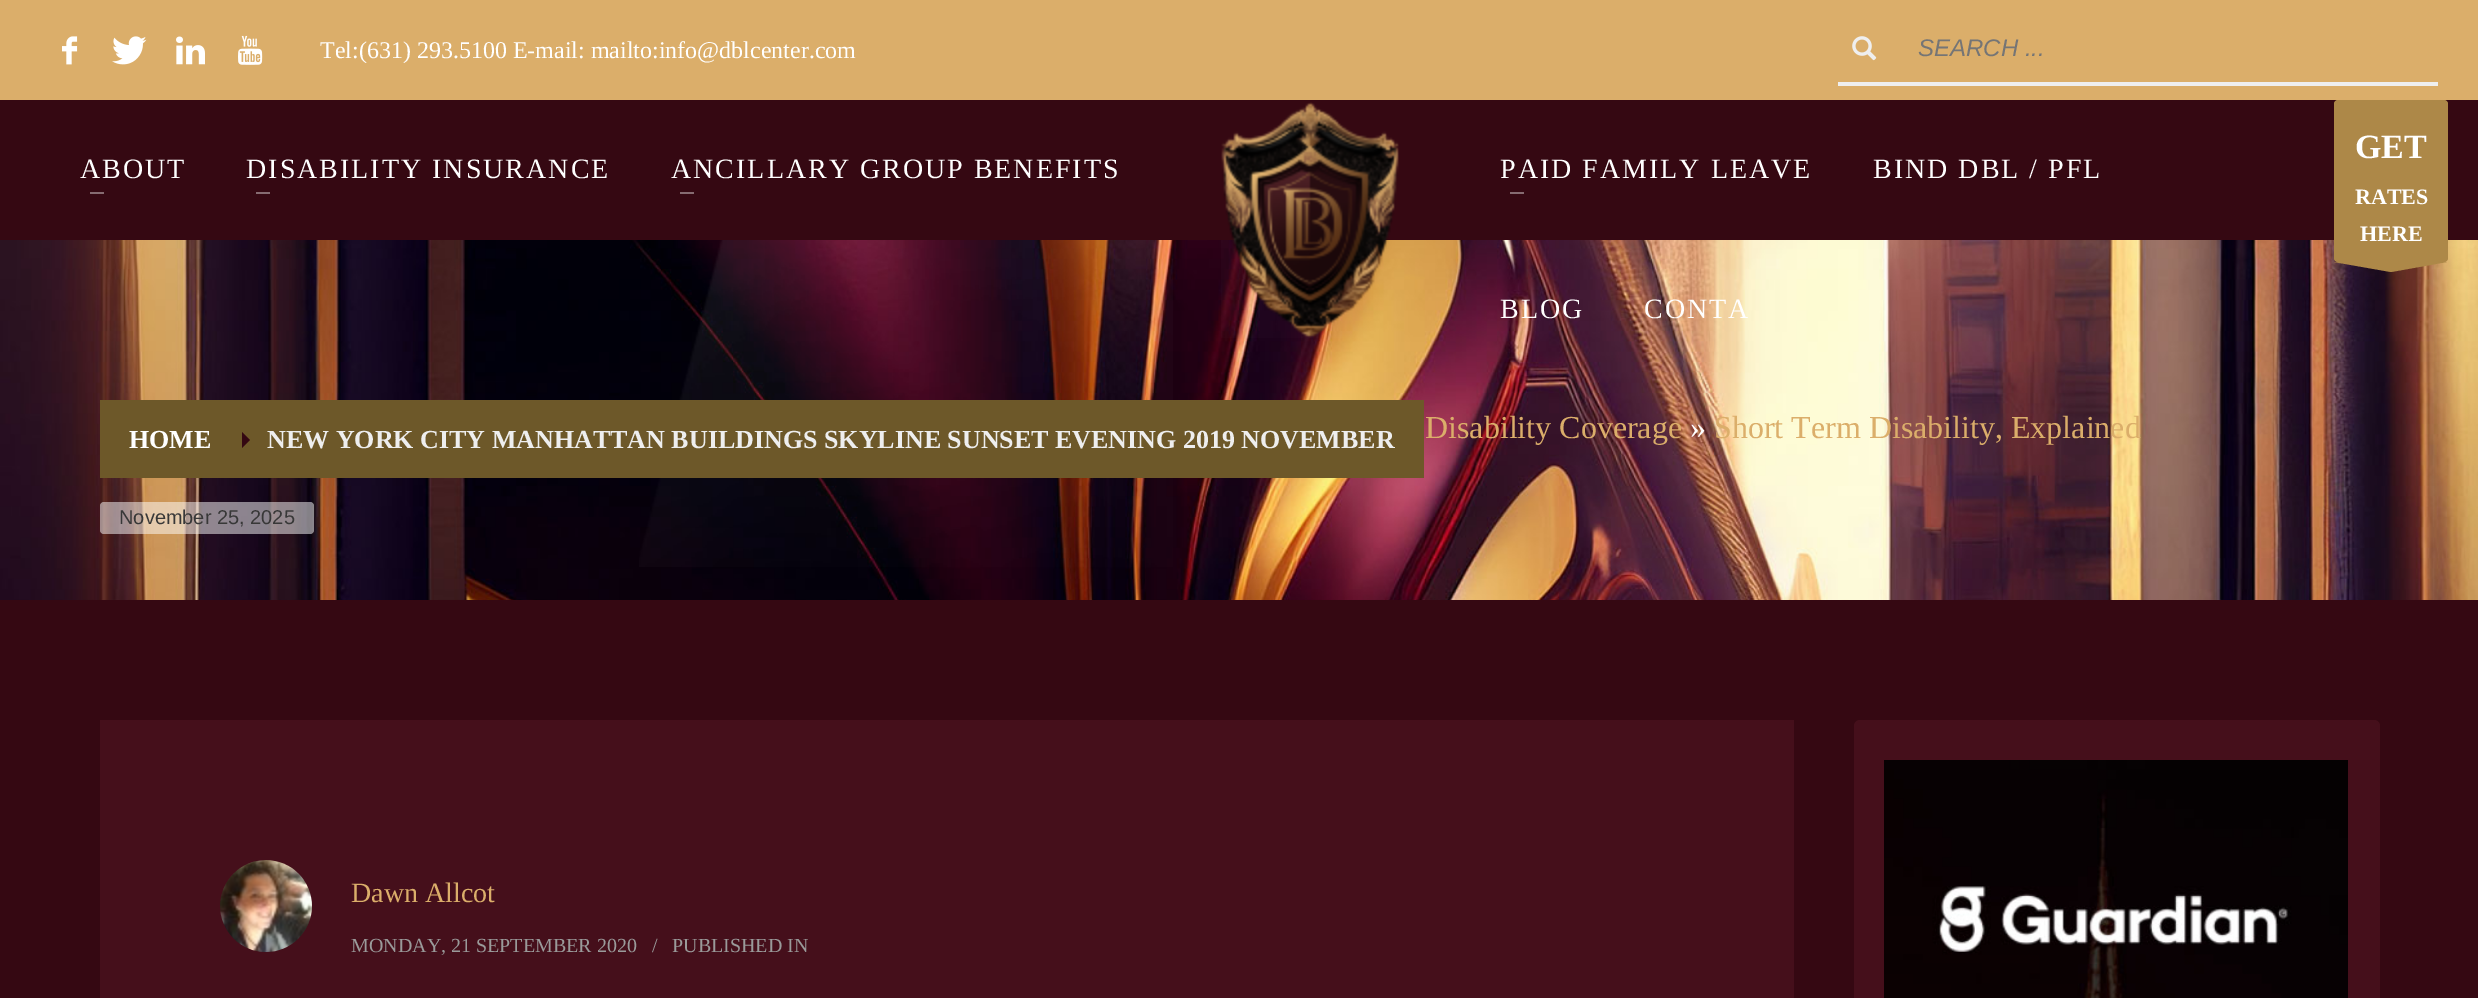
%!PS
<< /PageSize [2478 998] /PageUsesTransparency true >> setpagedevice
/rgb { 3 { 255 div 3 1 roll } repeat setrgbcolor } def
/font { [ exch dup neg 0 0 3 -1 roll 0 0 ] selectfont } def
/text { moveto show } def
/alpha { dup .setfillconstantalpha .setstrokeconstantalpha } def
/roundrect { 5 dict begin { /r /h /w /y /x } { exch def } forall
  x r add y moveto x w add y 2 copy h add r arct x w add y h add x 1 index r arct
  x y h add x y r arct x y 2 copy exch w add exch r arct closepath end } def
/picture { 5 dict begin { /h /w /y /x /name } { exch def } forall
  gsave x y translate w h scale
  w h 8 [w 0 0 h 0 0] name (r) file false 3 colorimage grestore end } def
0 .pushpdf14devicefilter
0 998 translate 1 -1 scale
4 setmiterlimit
53 8 18 rgb
0 0 2478 998 rectfill
219 174 106 rgb
0 0 2478 100 rectfill
(img_01.rgb) 62 36 16 29 picture
(img_02.rgb) 112 36 35 29 picture
(img_03.rgb) 176 36 29 29 picture
(img_04.rgb) 238 35 25 30 picture
(img_05.rgb) 1852 36 25 25 picture
239 239 239 rgb
1838 82 600 4 rectfill
134 107 113 rgb
90 192 14 2 rectfill
256 192 14 2 rectfill
680 192 14 2 rectfill
(img_07.rgb) 0 240 2478 360 picture
(img_06.rgb) 1221 102 178 236 picture
1510 192 14 2 rectfill
173 136 72 rgb
2334 100 114 162 4 roundrect fill
2447 262 moveto -56 10 rlineto -57 -10 rlineto closepath eofill
(img_08.rgb) 639 240 534 327 picture
109 88 41 rgb
100 400 1324 78 rectfill
53 8 18 rgb
242 448 moveto 0 -16 rlineto 8 8 rlineto closepath fill
0.5 alpha
255 255 255 rgb
100 502 214 32 4 roundrect fill
1 alpha
69 15 27 rgb
100 720 1694 278 rectfill
(img_09.rgb) 220 860 92 92 picture
1854 720 526 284 6 roundrect fill
(img_10.rgb) 1884 760 464 238 picture
/LiberationSerif-Regular 24 font
255 255 255 rgb
(Tel:\(631\) 293.5100 E-mail: mailto:info@dblcenter.com) 320 58 text
/LiberationSans-Italic 24 font
117 117 117 rgb
(SEARCH ...) 1918 56 text
/LiberationSerif-Regular 28 font
255 255 255 rgb
80 178 moveto 2 0 (ABOUT) ashow
246 178 moveto 2 0 (DISABILITY INSURANCE) ashow
671 178 moveto 2 0 (ANCILLARY GROUP BENEFITS) ashow
1500 178 moveto 2 0 (PAID FAMILY LEAVE) ashow
1873 178 moveto 2 0 (BIND DBL / PFL) ashow
1500 318 moveto 2 0 (BLOG) ashow
1644 318 moveto 2 0 (CONTA) ashow
/LiberationSerif-Bold 34 font
(GET) 2355 158 text
/LiberationSerif-Bold 22 font
(RATES) 2355 204 text
(HERE) 2360 241 text
/LiberationSerif-Bold 26 font
(HOME) 129 448 text
238 238 238 rgb
(NEW YORK CITY MANHATTAN BUILDINGS SKYLINE SUNSET EVENING 2019 NOVEMBER) 267 448 text
/LiberationSerif-Regular 32 font
219 174 106 rgb
(Disability Coverage) 1425 438 text
255 255 255 rgb
(») 1690 438 text
219 174 106 rgb
(Short Term Disability, Explained) 1714 438 text
/LiberationSans-Regular 20 font
56 56 56 rgb
(November 25, 2025) 119 524 text
/LiberationSerif-Regular 28 font
219 174 106 rgb
(Dawn Allcot) 351 902 text
/LiberationSerif-Regular 20 font
154 154 154 rgb
(MONDAY, 21 SEPTEMBER 2020) 351 952 text
(/) 652 952 text
(PUBLISHED IN) 672 952 text
.poppdf14devicefilter showpage
